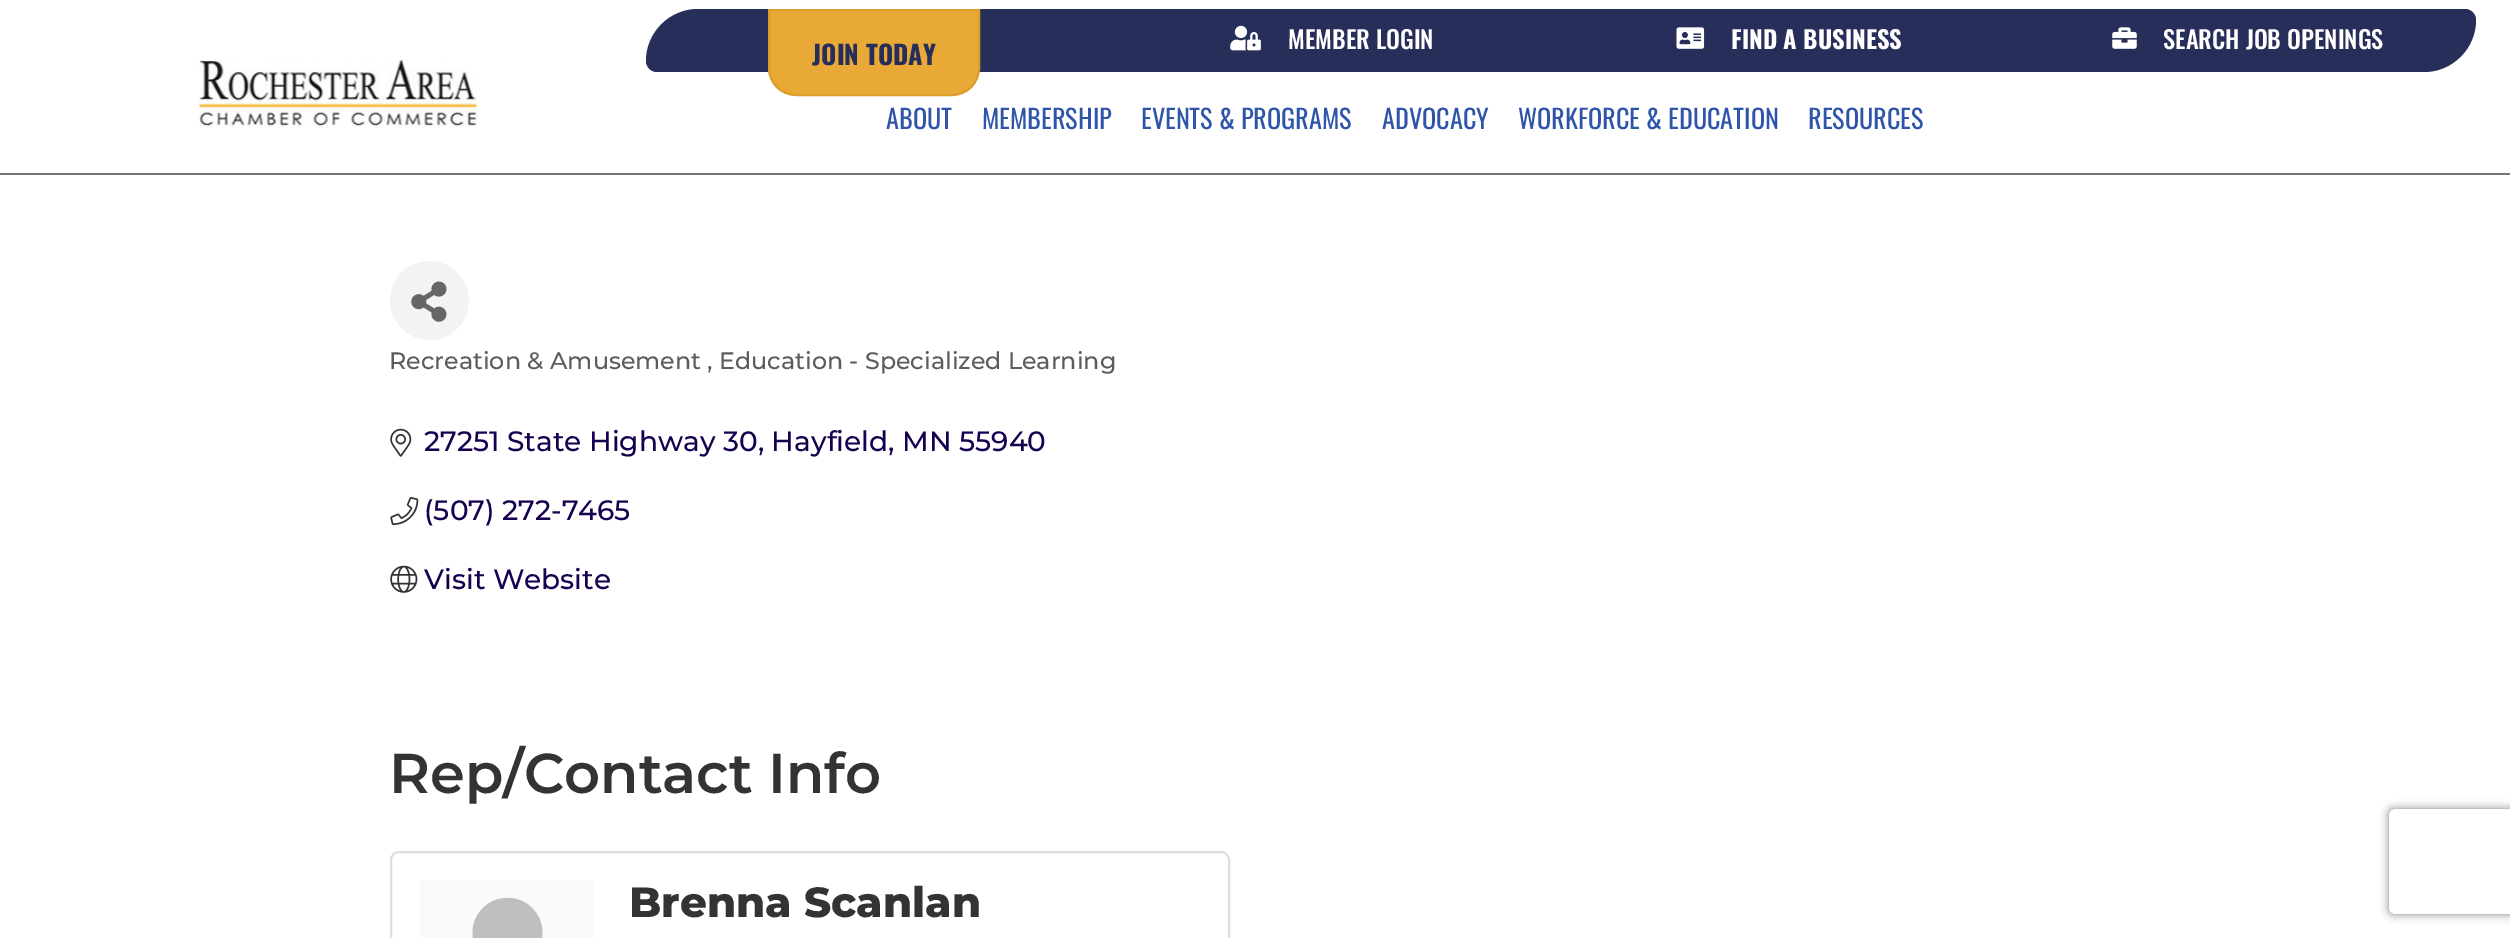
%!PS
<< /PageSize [2510 938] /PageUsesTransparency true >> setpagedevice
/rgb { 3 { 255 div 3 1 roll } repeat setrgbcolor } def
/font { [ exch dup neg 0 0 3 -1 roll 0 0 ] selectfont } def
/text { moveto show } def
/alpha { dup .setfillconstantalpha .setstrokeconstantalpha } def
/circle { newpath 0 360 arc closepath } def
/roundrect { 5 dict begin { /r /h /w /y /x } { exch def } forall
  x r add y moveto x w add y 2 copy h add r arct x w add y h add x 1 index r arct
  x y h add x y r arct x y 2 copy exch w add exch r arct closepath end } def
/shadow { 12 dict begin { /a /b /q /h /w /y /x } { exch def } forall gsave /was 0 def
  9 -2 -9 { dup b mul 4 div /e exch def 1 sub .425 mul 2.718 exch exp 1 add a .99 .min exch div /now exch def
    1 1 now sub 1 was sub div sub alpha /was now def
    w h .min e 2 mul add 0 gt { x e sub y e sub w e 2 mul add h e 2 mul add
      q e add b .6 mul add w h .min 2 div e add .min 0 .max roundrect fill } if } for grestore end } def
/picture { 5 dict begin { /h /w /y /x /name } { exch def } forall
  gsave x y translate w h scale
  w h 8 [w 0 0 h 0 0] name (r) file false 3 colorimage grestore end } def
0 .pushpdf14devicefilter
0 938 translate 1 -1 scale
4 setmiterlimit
255 255 255 rgb
0 0 2510 938 rectfill
119 119 119 rgb
0 173 2510 2 rectfill
(img_01.rgb) 199 59 279 69 picture
39 46 89 rgb
1103 9 915 63 rectfill
(img_02.rgb) 1230 25 31 26 picture
(img_03.rgb) 1676 27 29 22 picture
2018 9 moveto 447 0 rlineto 6 0 11 5 11 11 rcurveto 0 28.5 -23.5 52 -52 52 rcurveto -406 0 rlineto closepath fill
(img_04.rgb) 2112 27 25 22 picture
698 9 moveto 405 0 rlineto 0 63 rlineto -446 0 rlineto -6 0 -11 -5 -11 -11 rcurveto 0 -28.5 23.5 -52 52 -52 rcurveto closepath fill
233 169 54 rgb
769 10 moveto 210 0 rlineto 0 58 rlineto 0 15 -12 27 -27 27 rcurveto -156 0 rlineto -15 0 -27 -12 -27 -27 rcurveto closepath gsave fill grestore
221 157 42 rgb
2 setlinewidth
stroke
243 243 243 rgb
429.5 300.5 39.5 circle fill
(img_05.rgb) 411 281 36 41 picture
(img_06.rgb) 390 428 22 29 picture
(img_07.rgb) 390 497 29 28 picture
(img_08.rgb) 390 565 28 28 picture
223 223 223 rgb
391 852 838 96 8 roundrect stroke
250 250 250 rgb
420 880 175 58 rectfill
(img_09.rgb) 472 897 71 41 picture
gsave
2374 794 moveto 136 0 rlineto 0 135 rlineto -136 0 rlineto closepath 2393 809 moveto 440 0 rlineto 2 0 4 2 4 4 rcurveto 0 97 rlineto 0 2 -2 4 -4 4 rcurveto -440 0 rlineto -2 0 -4 -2 -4 -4 rcurveto 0 -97 rlineto 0 -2 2 -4 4 -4 rcurveto closepath eoclip newpath
128 128 128 rgb
2389 809 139 105 4 4.5 1 shadow
grestore
/Oswald-Medium 24.5 font
255 255 255 rgb
(MEMBER LOGIN) 1288 49 text
/Oswald-Bold 24.5 font
(FIND A BUSINESS) 1731 49 text
/Oswald-Medium 24.5 font
(SEARCH JOB OPENINGS) 2163 49 text
/Oswald-Bold 26.25 font
39 46 89 rgb
(JOIN TODAY) 812 65 text
/Oswald-Regular 26.25 font
46 85 169 rgb
(ABOUT) 886 129 text
(MEMBERSHIP) 982 129 text
(EVENTS & PROGRAMS) 1141 129 text
(ADVOCACY) 1382 129 text
(WORKFORCE & EDUCATION) 1518 129 text
(RESOURCES) 1808 129 text
/Montserrat-Medium 23.8 font
92 92 92 rgb
(Recreation & Amusement , Education - Specialized Learning) 389 369 text
/Montserrat-Medium 28 font
22 0 79 rgb
(27251 State Highway 30, Hayfield, MN 55940) 424 451 text
(\(507\) 272-7465) 424 520 text
(Visit Website) 424 589 text
/Montserrat-SemiBold 56 font
51 51 51 rgb
(Rep/Contact Info) 389 793 text
/Montserrat-ExtraBold 42 font
(Brenna Scanlan) 629 917 text
.poppdf14devicefilter showpage
